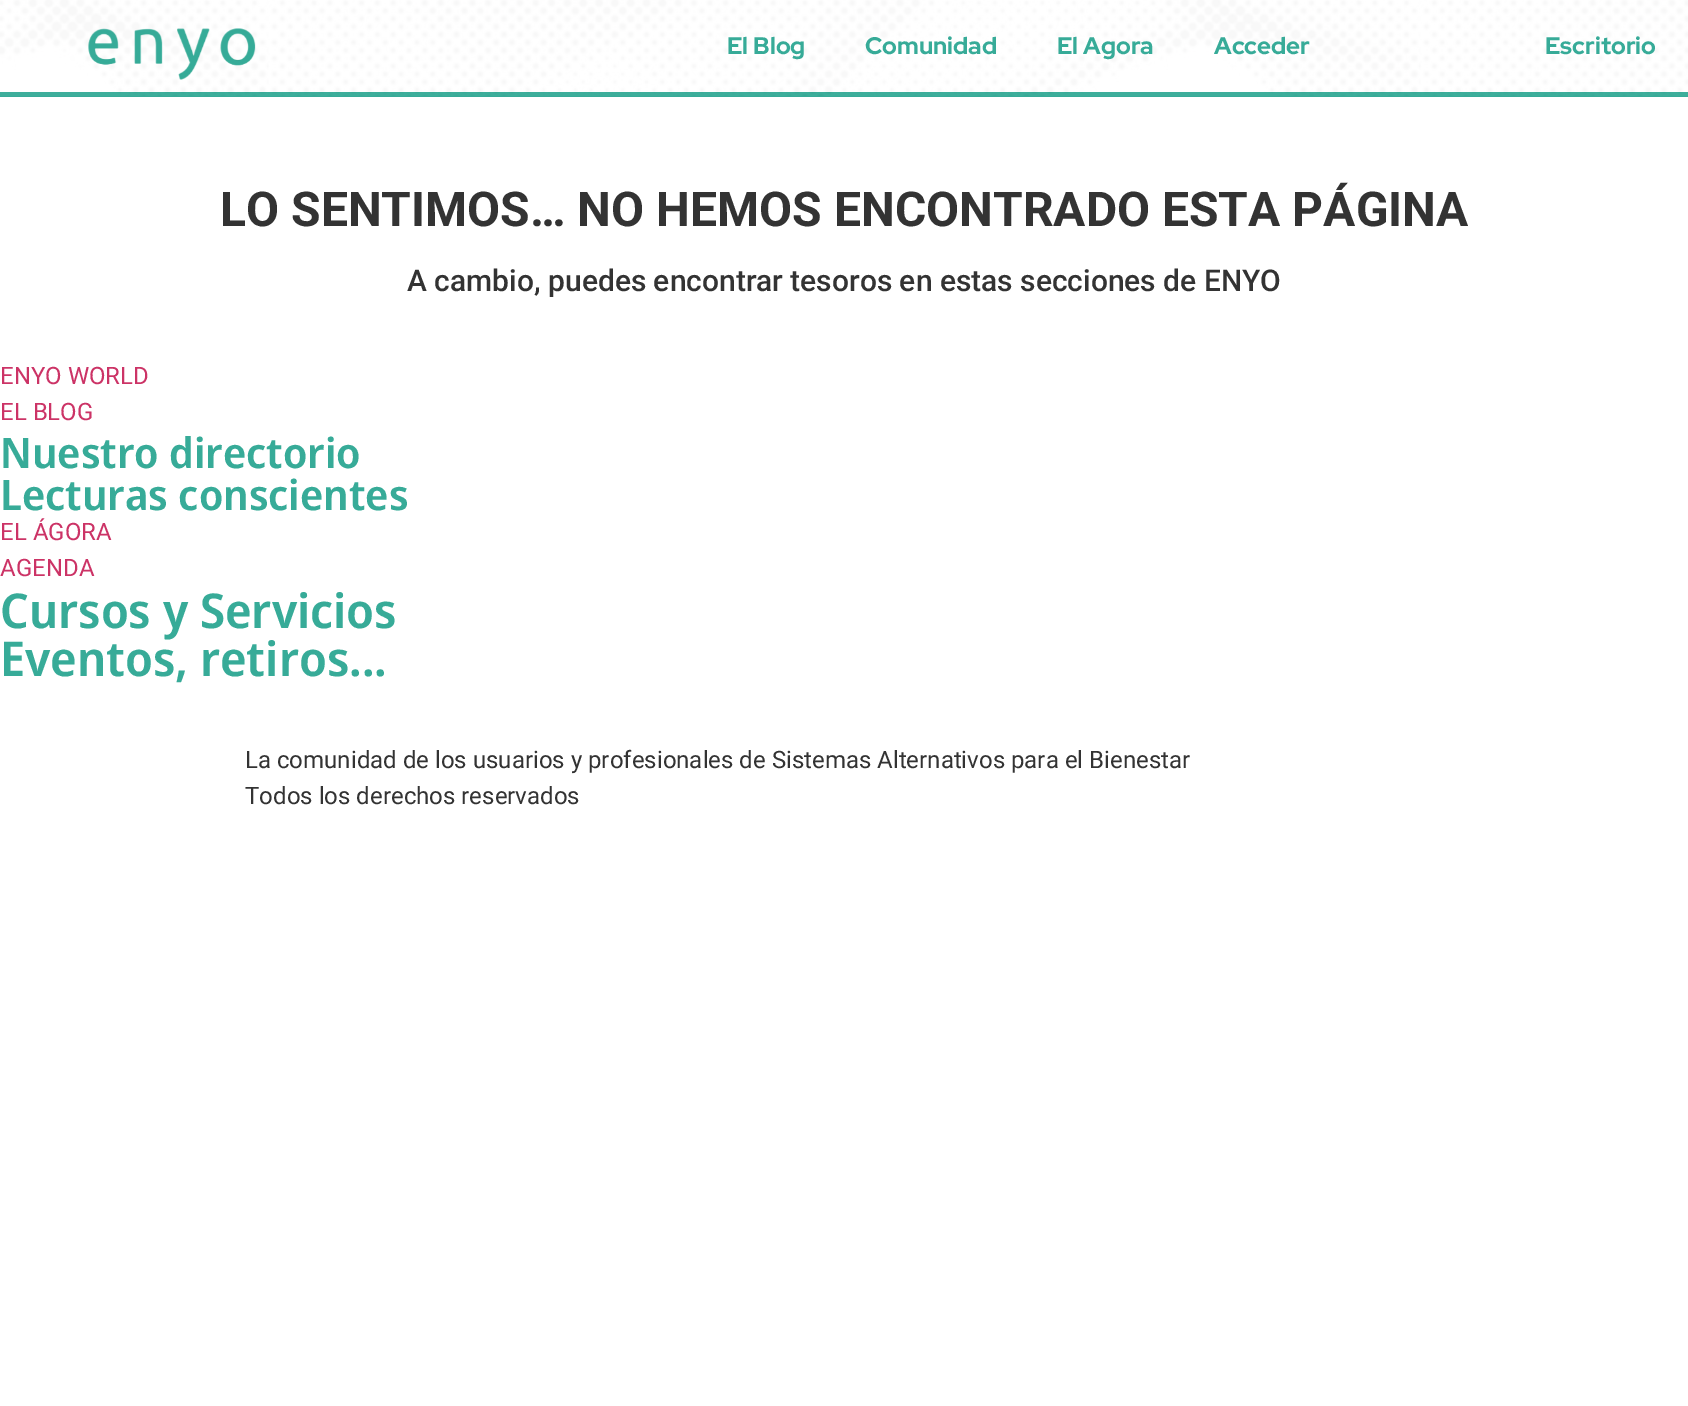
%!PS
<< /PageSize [1688 1406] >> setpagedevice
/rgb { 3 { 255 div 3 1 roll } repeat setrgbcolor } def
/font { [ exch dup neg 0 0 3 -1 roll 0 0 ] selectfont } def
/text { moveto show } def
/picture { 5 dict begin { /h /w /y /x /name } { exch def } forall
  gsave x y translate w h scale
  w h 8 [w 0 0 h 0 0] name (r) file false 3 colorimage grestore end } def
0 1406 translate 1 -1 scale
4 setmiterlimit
255 255 255 rgb
0 0 1688 1406 rectfill
55 171 152 rgb
0 92 1688 5 rectfill
(img_01.rgb) 0 0 1688 96 picture
(img_02.rgb) 88 28 168 52 picture
/RedHatDisplay-ExtraBold 24 font
(El Blog) 727 54 text
(Comunidad) 865 54 text
(El Agora) 1057 54 text
(Acceder) 1214 54 text
(Escritorio) 1545 54 text
/Roboto-Bold 48 font
51 51 51 rgb
(LO SENTIMOS… NO HEMOS ENCONTRADO ESTA PÁGINA) 220 226 text
/Roboto-Medium 30 font
(A cambio, puedes encontrar tesoros en estas secciones de ENYO) 407 291 text
/Roboto-Regular 24 font
204 51 102 rgb
(ENYO WORLD) 0 384 text
(EL BLOG) 0 420 text
/NotoSansDisplay-SemiBold 42 font
55 171 152 rgb
(Nuestro directorio) 0 468 text
(Lecturas conscientes) 0 510 text
/Roboto-Regular 24 font
204 51 102 rgb
(EL ÁGORA) 0 540 text
(AGENDA) 0 576 text
/NotoSansDisplay-SemiBold 48 font
55 171 152 rgb
(Cursos y Servicios) 0 628 text
(Eventos, retiros...) 0 676 text
/Roboto-Regular 24 font
51 51 51 rgb
(La comunidad de los usuarios y profesionales de Sistemas Alternativos para el Bienestar) 245 768 text
(Todos los derechos reservados) 245 804 text
showpage
